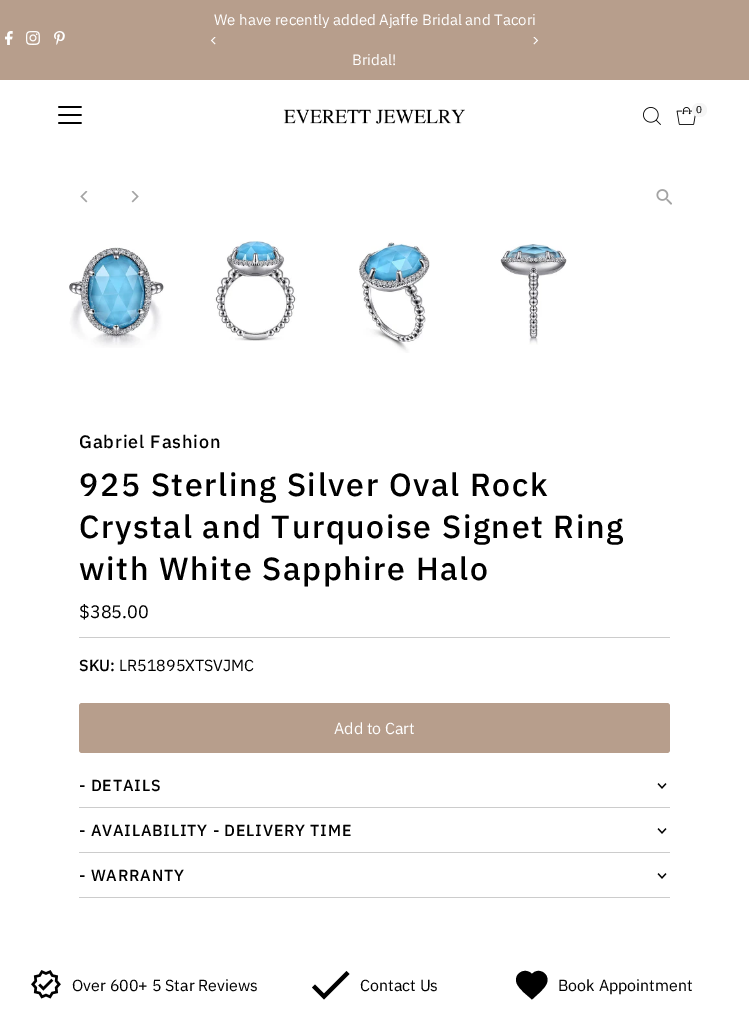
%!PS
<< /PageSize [749 1024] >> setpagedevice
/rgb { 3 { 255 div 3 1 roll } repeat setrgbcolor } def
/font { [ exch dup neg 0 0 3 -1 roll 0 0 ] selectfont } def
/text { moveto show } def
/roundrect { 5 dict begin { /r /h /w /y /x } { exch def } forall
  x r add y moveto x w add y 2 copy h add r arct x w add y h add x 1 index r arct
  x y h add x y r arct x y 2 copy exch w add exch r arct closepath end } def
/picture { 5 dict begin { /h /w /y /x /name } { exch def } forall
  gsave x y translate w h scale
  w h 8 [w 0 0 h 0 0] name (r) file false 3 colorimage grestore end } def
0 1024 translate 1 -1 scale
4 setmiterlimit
255 255 255 rgb
0 0 749 1024 rectfill
183 158 140 rgb
0 0 749 80 rectfill
(img_01.rgb) 5 31 8 14 picture
(img_02.rgb) 26 31 14 14 picture
(img_03.rgb) 54 31 11 14 picture
(img_04.rgb) 210 37 6 8 picture
(img_05.rgb) 533 37 6 8 picture
(img_06.rgb) 58 106 24 18 picture
(img_07.rgb) 283 109 182 15 picture
(img_08.rgb) 643 107 18 18 picture
(img_09.rgb) 676 107 20 18 picture
245 245 245 rgb
692 103 15 14 7 roundrect fill
(img_10.rgb) 80 191 8 12 picture
(img_11.rgb) 131 191 8 12 picture
(img_12.rgb) 656 189 16 16 picture
(img_13.rgb) 69 247 96 101 picture
(img_14.rgb) 214 240 83 101 picture
(img_15.rgb) 359 241 71 112 picture
(img_16.rgb) 500 244 67 101 picture
204 204 204 rgb
79 637 591 1 rectfill
183 158 140 rgb
79 703 591 50 3 roundrect fill
204 204 204 rgb
79 807 591 1 rectfill
(img_17.rgb) 657 783 10 6 picture
79 852 591 1 rectfill
(img_17.rgb) 657 828 10 6 picture
79 897 591 1 rectfill
(img_17.rgb) 657 873 10 6 picture
(img_18.rgb) 31 970 30 29 picture
0 0 0 rgb
324 993.5 moveto -9 -9 rlineto -3 3 rlineto 12 12 rlineto 25.5 -25.5 rlineto -3 -3 rlineto closepath fill
532 999.5 moveto -5 -4.5 -12 -9.5 -15 -15.5 rcurveto -4.5 -10 8 -17.5 15 -10 rcurveto 6.5 -7.5 19 0 14.5 10 rcurveto -3 6 -10 11 -14.5 15.5 rcurveto closepath fill
/IBMPlexSans-Regular 15 font
255 255 255 rgb
(We have recently added Ajaffe Bridal and Tacori) 214 25 text
(Bridal!) 352 65 text
/IBMPlexSans-Regular 10 font
0 0 0 rgb
(0) 696 113 text
/IBMPlexSans-Medium 18 font
79 448 moveto 0.9 0 (Gabriel Fashion) ashow
/IBMPlexSans-Medium 32 font
79 496 moveto 1.6 0 (925 Sterling Silver Oval Rock) ashow
79 538 moveto 1.6 0 (Crystal and Turquoise Signet Ring) ashow
79 580 moveto 1.6 0 (with White Sapphire Halo) ashow
/IBMPlexSans-Regular 18 font
($385.00) 79 618 text
/IBMPlexSans-Medium 16 font
(SKU:) 79 671 text
/IBMPlexSans-Regular 16 font
(LR51895XTSVJMC) 119 671 text
255 255 255 rgb
(Add to Cart) 334 734 text
/IBMPlexSans-Medium 16 font
0 0 0 rgb
79 791 moveto 0.8 0 (- DETAILS) ashow
79 836 moveto 0.8 0 (- AVAILABILITY - DELIVERY TIME) ashow
79 881 moveto 0.8 0 (- WARRANTY) ashow
/IBMPlexSans-Regular 16 font
(Over 600+ 5 Star Reviews) 72 991 text
(Contact Us) 360 991 text
(Book Appointment) 558 991 text
showpage
